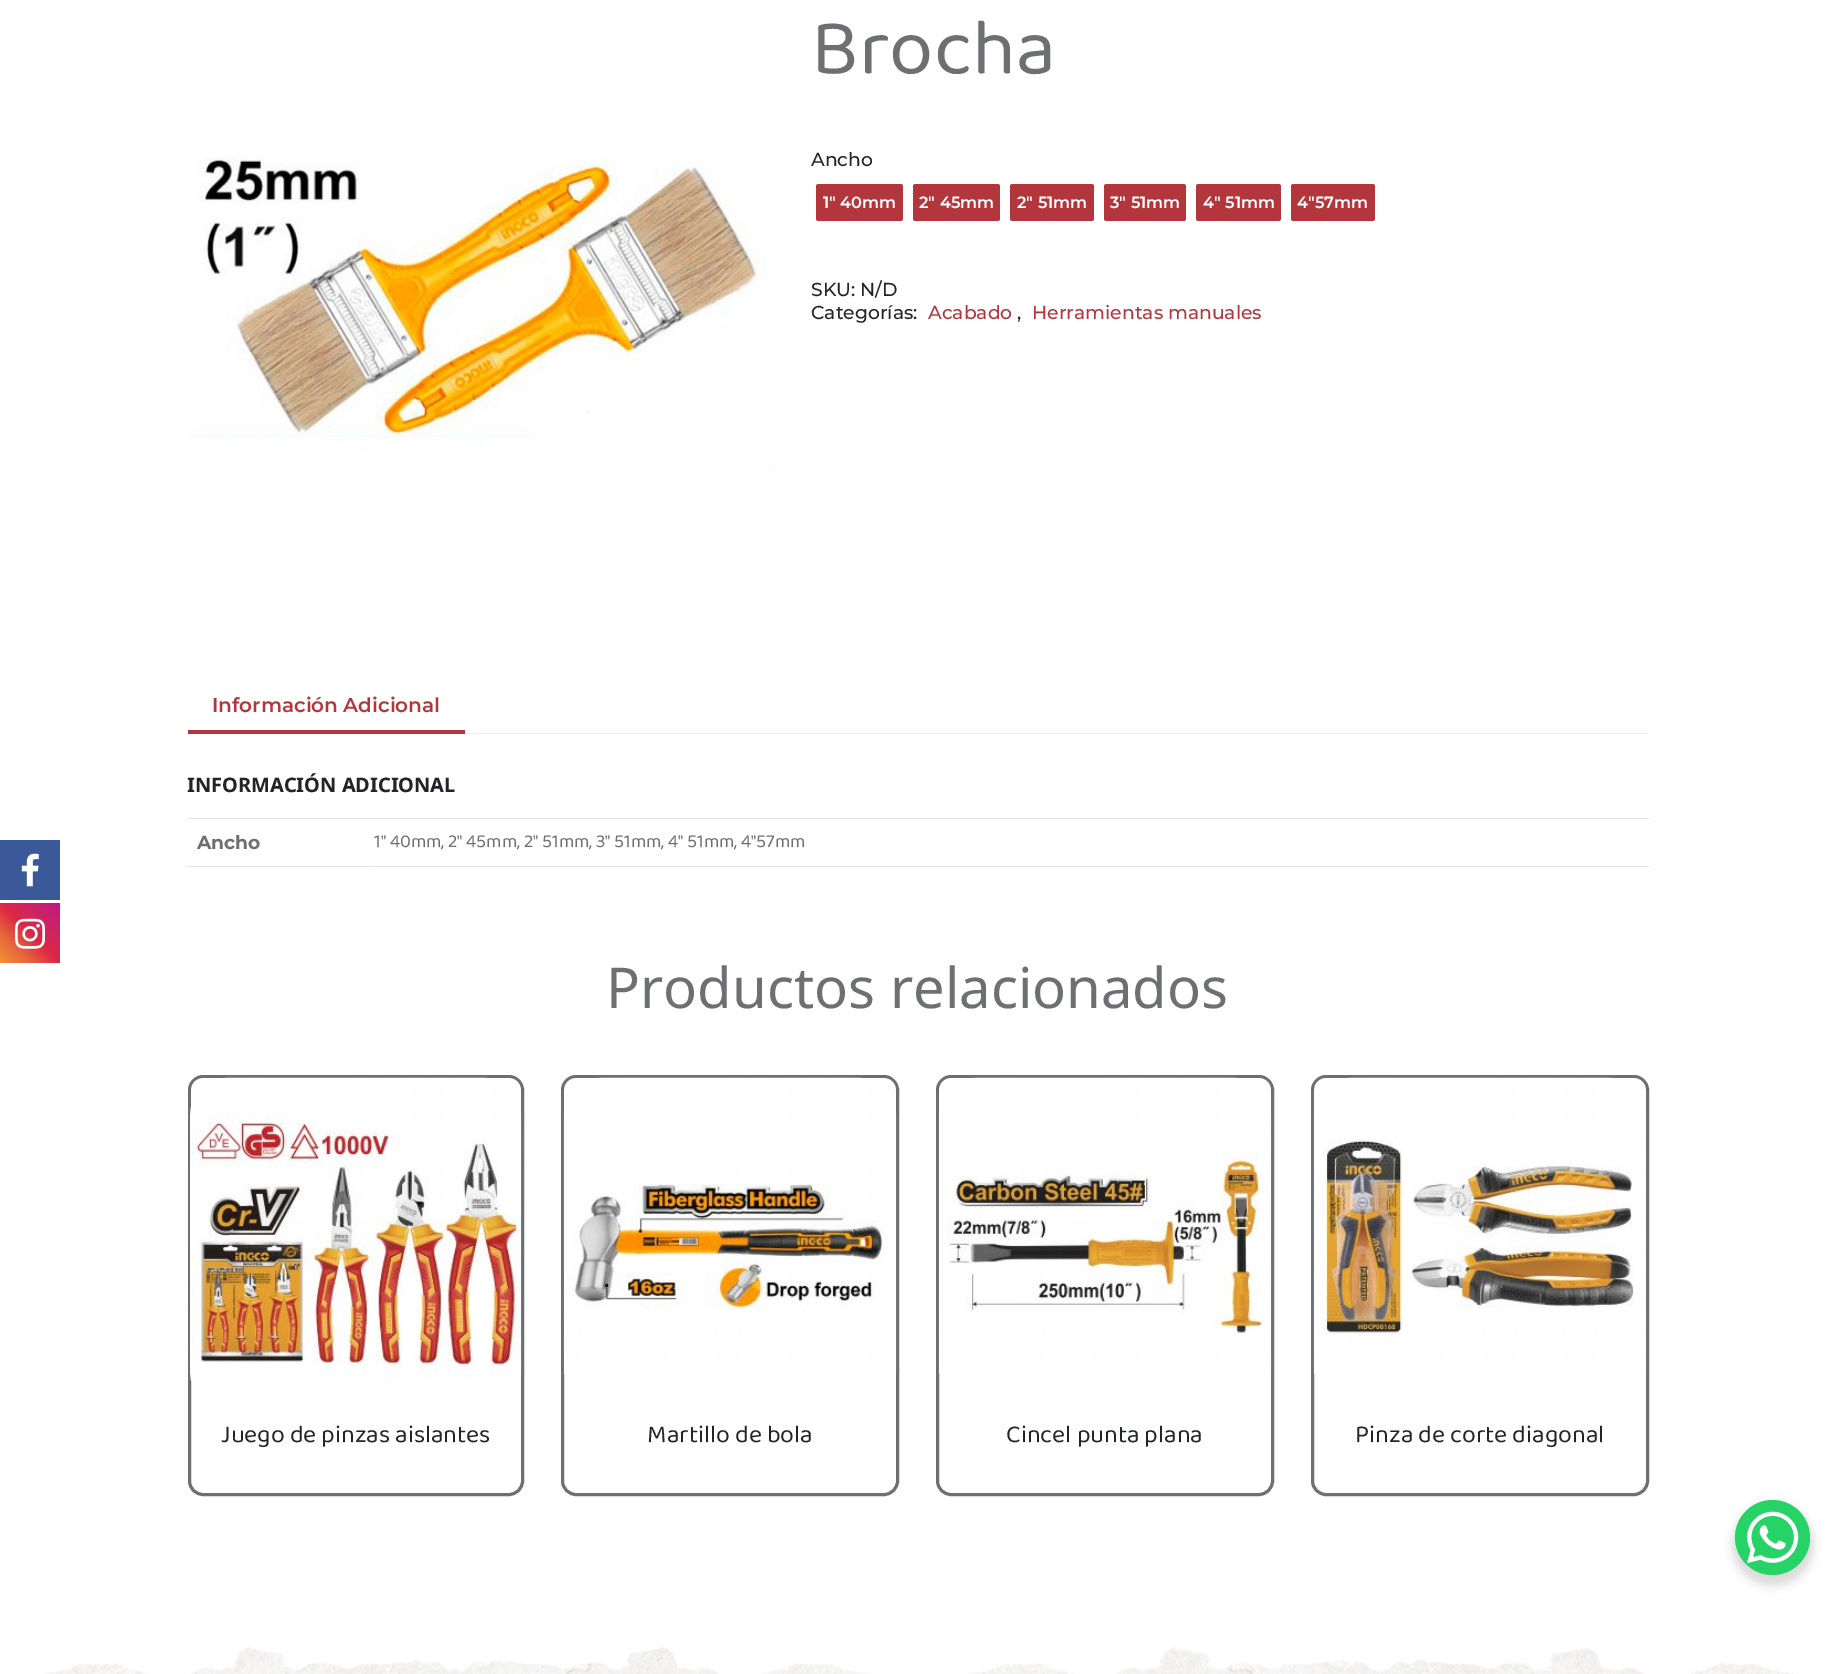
%!PS
<< /PageSize [1834 1674] /PageUsesTransparency true >> setpagedevice
/rgb { 3 { 255 div 3 1 roll } repeat setrgbcolor } def
/font { [ exch dup neg 0 0 3 -1 roll 0 0 ] selectfont } def
/text { moveto show } def
/alpha { dup .setfillconstantalpha .setstrokeconstantalpha } def
/circle { newpath 0 360 arc closepath } def
/roundrect { 5 dict begin { /r /h /w /y /x } { exch def } forall
  x r add y moveto x w add y 2 copy h add r arct x w add y h add x 1 index r arct
  x y h add x y r arct x y 2 copy exch w add exch r arct closepath end } def
/shadow { 12 dict begin { /a /b /q /h /w /y /x } { exch def } forall gsave /was 0 def
  9 -2 -9 { dup b mul 4 div /e exch def 1 sub .425 mul 2.718 exch exp 1 add a .99 .min exch div /now exch def
    1 1 now sub 1 was sub div sub alpha /was now def
    w h .min e 2 mul add 0 gt { x e sub y e sub w e 2 mul add h e 2 mul add
      q e add b .6 mul add w h .min 2 div e add .min 0 .max roundrect fill } if } for grestore end } def
/picture { 5 dict begin { /h /w /y /x /name } { exch def } forall
  gsave x y translate w h scale
  w h 8 [w 0 0 h 0 0] name (r) file false 3 colorimage grestore end } def
0 .pushpdf14devicefilter
0 1674 translate 1 -1 scale
4 setmiterlimit
255 255 255 rgb
0 0 1834 1674 rectfill
230 230 230 rgb
186 866 1463 1 rectfill
59 89 152 rgb
0 840 60 60 rectfill
(img_01.rgb) 21 853 18 34 picture
gsave 0 903 moveto 60 0 rlineto 0 60 rlineto -60 0 rlineto closepath clip newpath
<< /ShadingType 2 /ColorSpace /DeviceRGB /Coords [0 963 60 903] /Extend [true true] /Function << /FunctionType 3 /Domain [0 1] /Functions [<< /FunctionType 2 /Domain [0 1] /C0 [0.941 0.58 0.2] /C1 [0.902 0.408 0.235] /N 1 >> << /FunctionType 2 /Domain [0 1] /C0 [0.902 0.408 0.235] /C1 [0.863 0.153 0.263] /N 1 >> << /FunctionType 2 /Domain [0 1] /C0 [0.863 0.153 0.263] /C1 [0.8 0.137 0.4] /N 1 >> << /FunctionType 2 /Domain [0 1] /C0 [0.8 0.137 0.4] /C1 [0.737 0.094 0.533] /N 1 >>] /Bounds [0.25 0.5 0.75] /Encode [0 1 0 1 0 1 0 1] >> >> shfill grestore
(img_02.rgb) 15 918 30 31 picture
(img_03.rgb) 188 156 585 314 picture
178 54 60 rgb
816 184 87 37 2.5 roundrect fill
913 184 87 37 2.5 roundrect fill
1010 184 84 37 2.5 roundrect fill
1104 184 82 37 2.5 roundrect fill
1196 184 85 37 2.5 roundrect fill
1291 184 84 37 2.5 roundrect fill
238 238 238 rgb
465 733 1184 1 rectfill
178 54 60 rgb
188 730 277 4 rectfill
230 230 230 rgb
188 818 1461 1 rectfill
207 207 207 rgb
374 866 1 1 rectfill
110 111 114 rgb
3 setlinewidth
189.5 1076.5 333 418 13.5 roundrect stroke
(img_04.rgb) 190 1077 332 304 picture
562.5 1076.5 335 418 13.5 roundrect stroke
(img_05.rgb) 563 1077 334 297 picture
937.5 1076.5 335 418 13.5 roundrect stroke
(img_06.rgb) 938 1077 334 297 picture
1312.5 1076.5 335 418 13.5 roundrect stroke
(img_07.rgb) 1313 1077 334 297 picture
(img_08.rgb) 42 1646 1752 28 picture
0 0 0 rgb
1733 1505 80 80 40 5 0.15 shadow
37 211 102 rgb
1772.5 1537.5 37.5 circle fill
(img_09.rgb) 1747 1511 52 53 picture
/Baloo2-Regular 80 font
110 111 114 rgb
(Brocha) 811 73 text
/Montserrat-Medium 18.75 font
33 37 41 rgb
(Ancho) 811 166 text
/Montserrat-SemiBold 16.25 font
255 255 255 rgb
(1" 40mm) 823 208 text
(2" 45mm) 919 208 text
(2" 51mm) 1017 208 text
(3" 51mm) 1110 208 text
(4" 51mm) 1203 208 text
(4"57mm) 1297 208 text
/Montserrat-Medium 18.75 font
33 37 41 rgb
(SKU: N/D) 811 296 text
(Categorías:) 811 319 text
178 54 60 rgb
(Acabado) 928 319 text
33 37 41 rgb
(,) 1017 319 text
178 54 60 rgb
(Herramientas manuales) 1032 319 text
/Montserrat-SemiBold 20 font
(Información Adicional) 212 712 text
/NotoSans-Bold 20 font
33 37 41 rgb
(INFORMACIÓN ADICIONAL) 187 792 text
/Montserrat-Bold 18.75 font
110 111 114 rgb
(Ancho) 197 849 text
/Baloo2-Regular 18.75 font
(1" 40mm, 2" 45mm, 2" 51mm, 3" 51mm, 4" 51mm, 4"57mm) 374 847 text
/NotoSans-Regular 56.25 font
(Productos relacionados) 606 1008 text
/Baloo2-Regular 25 font
33 37 41 rgb
(Juego de pinzas aislantes) 221 1442 text
(Martillo de bola) 647 1442 text
(Cincel punta plana) 1006 1442 text
(Pinza de corte diagonal) 1355 1442 text
.poppdf14devicefilter showpage
